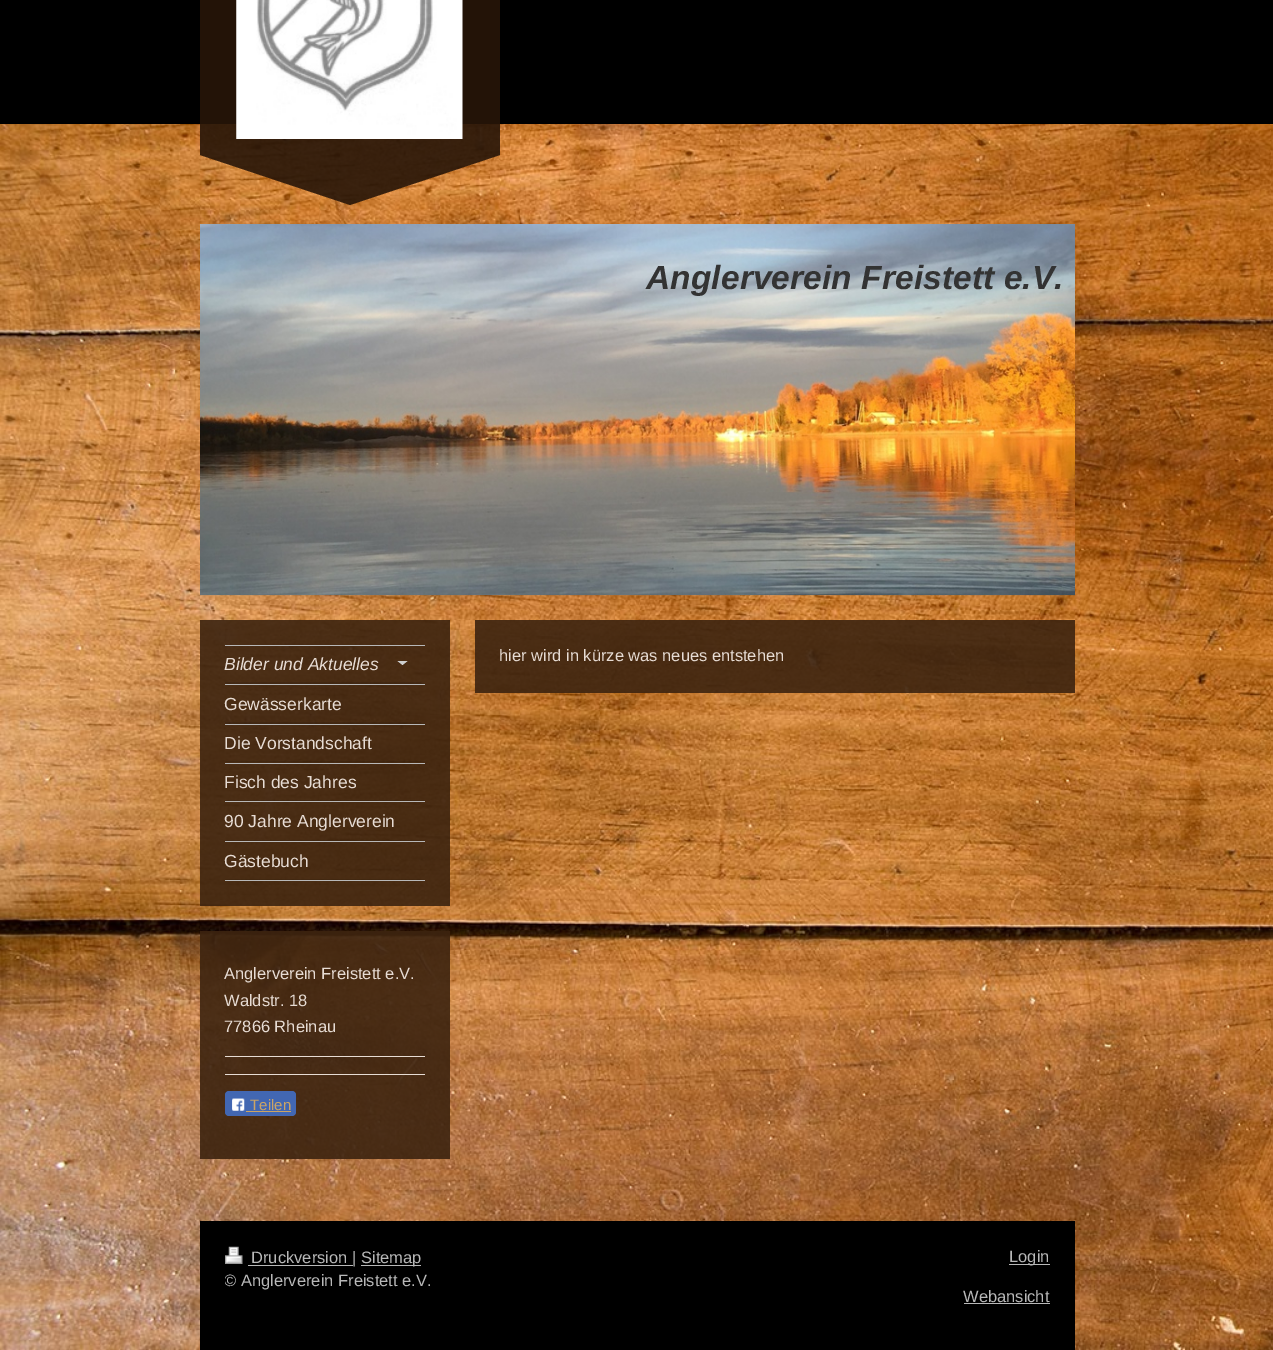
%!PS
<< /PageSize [1273 1350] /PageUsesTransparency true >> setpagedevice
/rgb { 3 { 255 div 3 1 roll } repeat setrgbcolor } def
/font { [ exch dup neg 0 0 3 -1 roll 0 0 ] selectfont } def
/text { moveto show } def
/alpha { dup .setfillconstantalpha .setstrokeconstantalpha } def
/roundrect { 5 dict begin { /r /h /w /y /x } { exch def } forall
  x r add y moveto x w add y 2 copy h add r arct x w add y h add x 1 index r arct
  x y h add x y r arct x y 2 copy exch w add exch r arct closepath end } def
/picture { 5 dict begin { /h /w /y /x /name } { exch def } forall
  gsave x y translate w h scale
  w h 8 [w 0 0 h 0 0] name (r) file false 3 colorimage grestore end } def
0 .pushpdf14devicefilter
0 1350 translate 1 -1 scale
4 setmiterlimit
255 255 255 rgb
0 0 1273 1350 rectfill
(img_01.rgb) 0 124 1273 1226 picture
0 0 0 rgb
0 0 1273 124 rectfill
0.9 alpha
39 21 8 rgb
200 0 300 155 rectfill
1 alpha
(img_02.rgb) 236 0 227 139 picture
0.9 alpha
200 155 moveto 300 0 rlineto -150 50 rlineto closepath fill
1 alpha
(img_04.rgb) 200 595 875 1 picture
(img_03.rgb) 200 224 875 372 picture
0.9 alpha
60 35 15 rgb
475 620 600 73 rectfill
200 620 250 286 rectfill
1 alpha
184 184 184 rgb
225 645 200 1 rectfill
225 684 200 1 rectfill
0.1 alpha
0 0 0 rgb
425 684 moveto -200 0 rlineto 0 -2 rlineto 195 0 rlineto closepath fill
1 alpha
207 207 207 rgb
397.5 661 moveto 10 0 rlineto -5 4 rlineto closepath fill
184 184 184 rgb
225 724 200 1 rectfill
0.1 alpha
0 0 0 rgb
425 724 moveto -200 0 rlineto 0 -2 rlineto 195 0 rlineto closepath fill
1 alpha
184 184 184 rgb
225 763 200 1 rectfill
0.1 alpha
0 0 0 rgb
425 762 moveto -200 0 rlineto 0 -1 rlineto 195 0 rlineto closepath fill
1 alpha
184 184 184 rgb
225 801 200 1 rectfill
0.1 alpha
0 0 0 rgb
425 801 moveto -200 0 rlineto 0 -1 rlineto 195 0 rlineto closepath fill
1 alpha
184 184 184 rgb
225 841 200 1 rectfill
0.1 alpha
0 0 0 rgb
425 841 moveto -200 0 rlineto 0 -1 rlineto 195 0 rlineto closepath fill
1 alpha
184 184 184 rgb
225 880 200 1 rectfill
0.1 alpha
0 0 0 rgb
425 880 moveto -200 0 rlineto 0 -1 rlineto 195 0 rlineto closepath fill
0.9 alpha
60 35 15 rgb
200 931 250 228 rectfill
1 alpha
231 220 212 rgb
225 1056 200 1 rectfill
225 1074 200 1 rectfill
66 103 178 rgb
225 1091 71 25 4 roundrect fill
(img_05.rgb) 232 1098 13 13 picture
203 164 101 rgb
246 1111 45 1 rectfill
0 0 0 rgb
200 1221 875 129 rectfill
(img_06.rgb) 225 1246 18 18 picture
184 184 184 rgb
248 1265 105 1 rectfill
361 1265 60 1 rectfill
1009 1264 41 1 rectfill
964 1303 86 1 rectfill
/LiberationSans-BoldItalic 33.5 font
51 51 51 rgb
646 289 moveto 0.1 0 (Anglerverein Freistett e.V.) ashow
/LiberationSans-Regular 16.5 font
231 220 212 rgb
(hier wird in kürze was neues entstehen) 499 661 text
/LiberationSans-Italic 17.5 font
(Bilder und Aktuelles) 224 670 text
/LiberationSans-Regular 17.5 font
(Gewässerkarte) 224 710 text
(Die Vorstandschaft) 224 749 text
(Fisch des Jahres) 224 788 text
(90 Jahre Anglerverein) 224 827 text
(Gästebuch) 224 867 text
/LiberationSans-Regular 16.5 font
(Anglerverein Freistett e.V.) 224 979 text
(Waldstr. 18) 224 1006 text
(77866 Rheinau) 224 1032 text
/LiberationSans-Regular 15 font
203 164 101 rgb
(Teilen) 250 1110 text
/LiberationSans-Regular 16.5 font
184 184 184 rgb
(Druckversion |) 251 1263 text
(Sitemap) 361 1263 text
gsave
225 1246 825 79 rectclip
(© Anglerverein Freistett e.V.) 224 1286 text
grestore
(Login) 1009 1262 text
(Webansicht) 963 1302 text
.poppdf14devicefilter showpage
